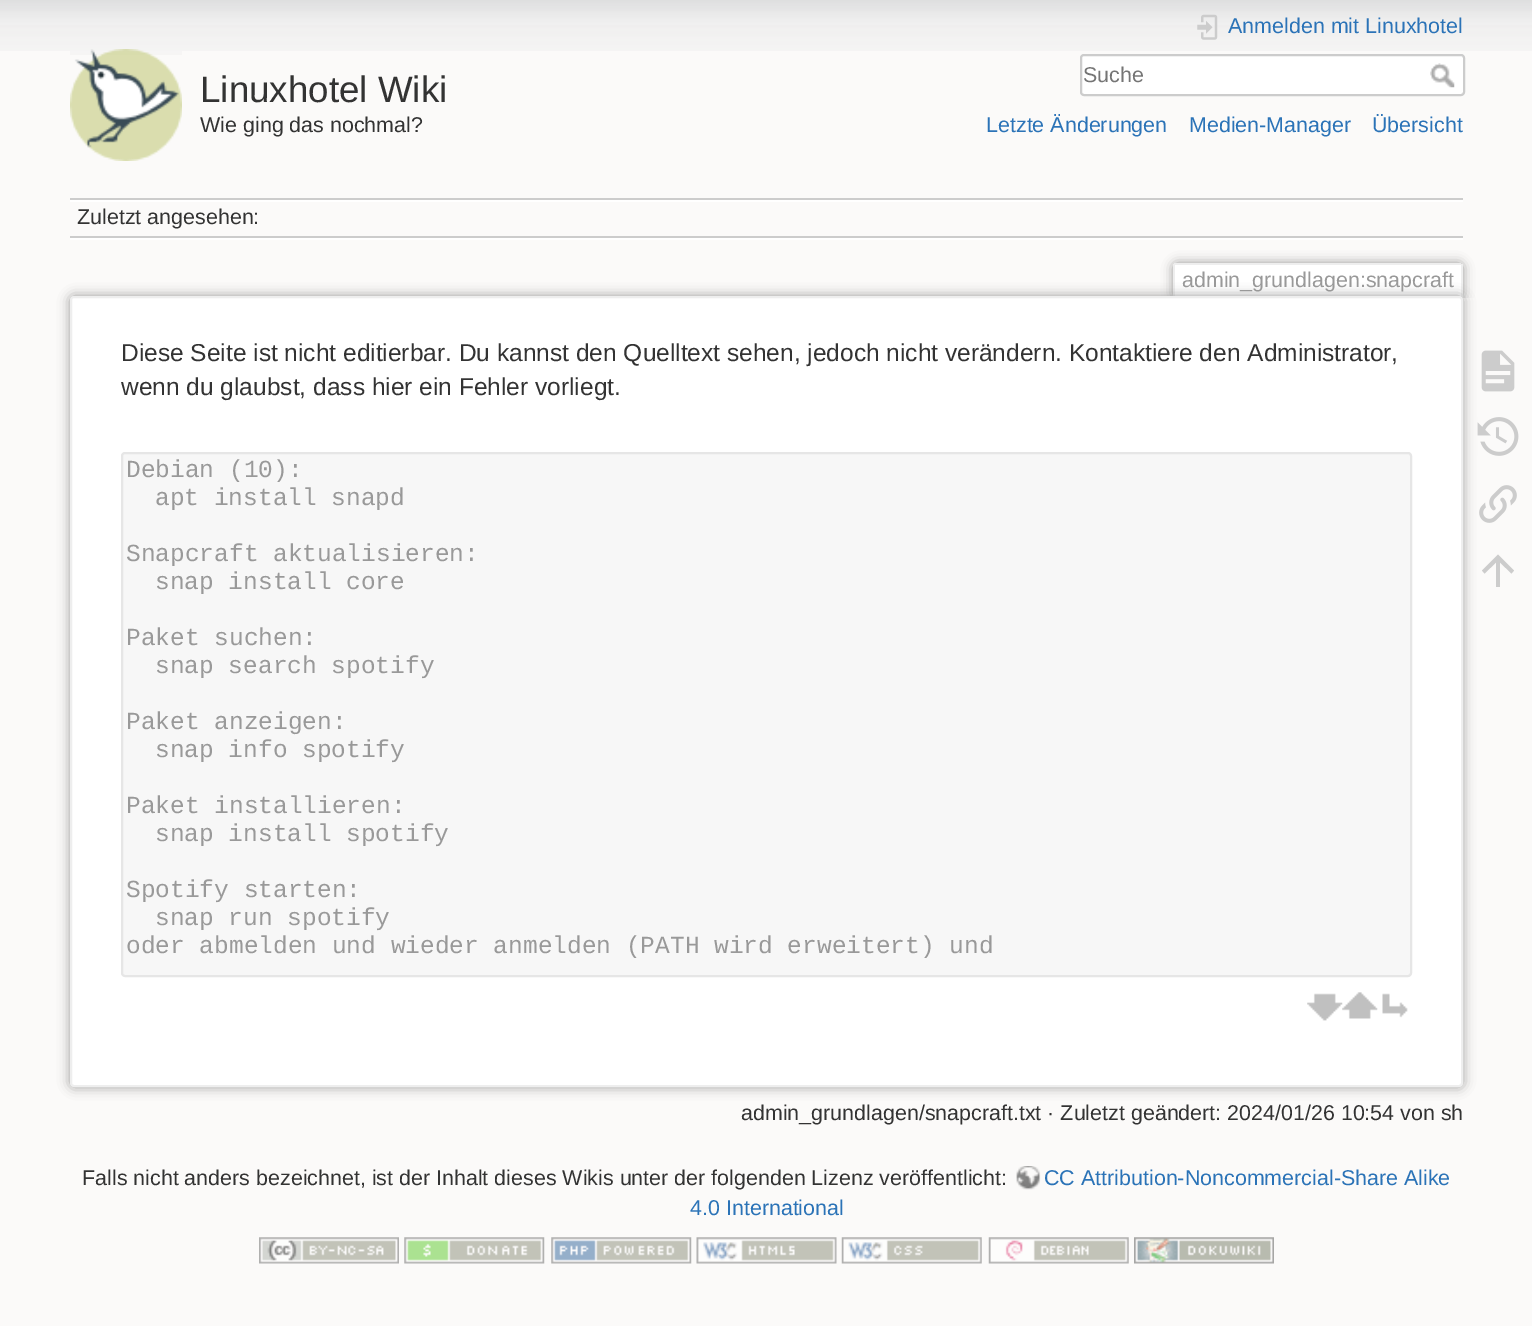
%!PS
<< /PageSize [1532 1326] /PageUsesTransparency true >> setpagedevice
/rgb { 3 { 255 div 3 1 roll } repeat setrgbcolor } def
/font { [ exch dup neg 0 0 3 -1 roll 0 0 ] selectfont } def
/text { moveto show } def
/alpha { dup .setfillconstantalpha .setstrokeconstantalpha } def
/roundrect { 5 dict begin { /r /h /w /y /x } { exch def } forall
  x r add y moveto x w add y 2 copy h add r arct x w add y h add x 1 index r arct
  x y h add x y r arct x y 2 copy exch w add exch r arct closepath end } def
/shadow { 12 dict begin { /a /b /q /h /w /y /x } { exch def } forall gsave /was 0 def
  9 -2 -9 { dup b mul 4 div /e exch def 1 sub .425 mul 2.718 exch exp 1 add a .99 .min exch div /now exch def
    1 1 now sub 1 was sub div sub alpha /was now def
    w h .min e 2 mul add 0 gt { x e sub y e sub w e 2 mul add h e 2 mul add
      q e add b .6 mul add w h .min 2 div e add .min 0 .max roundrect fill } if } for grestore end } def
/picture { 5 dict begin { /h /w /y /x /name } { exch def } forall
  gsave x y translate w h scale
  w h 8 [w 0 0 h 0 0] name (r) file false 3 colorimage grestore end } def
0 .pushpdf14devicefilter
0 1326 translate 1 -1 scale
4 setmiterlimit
251 250 249 rgb
0 0 1532 1326 rectfill
(img_01.rgb) 0 0 1532 51 picture
(img_02.rgb) 70 49 112 112 picture
(img_03.rgb) 1197 14 21 26 picture
255 255 255 rgb
1081 55 383 40 3 roundrect gsave fill grestore
204 204 204 rgb
2 setlinewidth
stroke
(img_04.rgb) 1430 63 25 25 picture
70 198 1393 2 rectfill
255 255 255 rgb
70 238 1393 2 rectfill
70 200 1393 2 rectfill
204 204 204 rgb
70 236 1393 2 rectfill
gsave
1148 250 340 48 rectclip
153 153 153 rgb
1173 263 290 35 4 5.5 1 shadow
grestore
255 255 255 rgb
1176 264 moveto 283 0 rlineto 1 0 2 1 2 2 rcurveto 0 32 rlineto -287 0 rlineto 0 -32 rlineto 0 -1 1 -2 2 -2 rcurveto closepath fill
238 238 238 rgb
1174 263 287 2 rectfill
1461 264 2 34 rectfill
1173 264 2 34 rectfill
153 153 153 rgb
70 296 1393 791 4 6 1 shadow
255 255 255 rgb
71 297 1391 789 3 roundrect gsave fill grestore
238 238 238 rgb
stroke
247 247 247 rgb
122 453 1289 523 3 roundrect gsave fill grestore
230 230 230 rgb
stroke
(img_05.rgb) 1307 993 36 28 picture
(img_06.rgb) 1342 992 36 27 picture
(img_07.rgb) 1382 993 26 25 picture
(img_08.rgb) 1481 350 34 42 picture
(img_09.rgb) 1477 417 42 39 picture
(img_10.rgb) 1479 485 38 38 picture
204 204 204 rgb
1500 587 moveto -4 0 rlineto 0 -24.5 rlineto -11.5 11 rlineto -2.5 -3 rlineto 16 -16 rlineto 16 16 rlineto -2.5 3 rlineto -11.5 -11 rlineto closepath fill
(img_11.rgb) 1016 1166 25 24 picture
(img_12.rgb) 259 1237 140 27 picture
(img_13.rgb) 404 1237 141 27 picture
(img_14.rgb) 551 1237 141 27 picture
(img_15.rgb) 696 1237 141 27 picture
(img_16.rgb) 841 1237 141 27 picture
(img_17.rgb) 988 1237 141 27 picture
(img_18.rgb) 1134 1237 140 27 picture
/LiberationSans-Regular 36.75 font
51 51 51 rgb
(Linuxhotel Wiki) 200 102 text
/LiberationSans-Regular 21.45 font
(Wie ging das nochmal?) 200 132 text
43 115 183 rgb
(Anmelden mit Linuxhotel) 1228 33 text
117 117 117 rgb
(Suche) 1083 82 text
43 115 183 rgb
(Letzte Änderungen) 986 132 text
(Medien-Manager) 1189 132 text
(Übersicht) 1372 132 text
51 51 51 rgb
(Zuletzt angesehen:) 77 224 text
153 153 153 rgb
(admin_grundlagen:snapcraft) 1182 287 text
/LiberationSans-Regular 24.5 font
51 51 51 rgb
(Diese Seite ist nicht editierbar. Du kannst den Quelltext sehen, jedoch nicht verändern. Kontaktiere den Administrator,) 121 361 text
(wenn du glaubst, dass hier ein Fehler vorliegt.) 121 395 text
/LiberationMono-Regular 24.5 font
153 153 153 rgb
(Debian \(10\):) 126 477 text
(apt install snapd) 155 505 text
(Snapcraft aktualisieren:) 126 561 text
(snap install core) 155 589 text
(Paket suchen:) 126 645 text
(snap search spotify) 155 673 text
(Paket anzeigen:) 126 729 text
(snap info spotify) 155 757 text
(Paket installieren:) 126 813 text
(snap install spotify) 155 841 text
(Spotify starten:) 126 897 text
(snap run spotify) 155 925 text
(oder abmelden und wieder anmelden \(PATH wird erweitert\) und) 126 953 text
/LiberationSans-Regular 21.45 font
51 51 51 rgb
(admin_grundlagen/snapcraft.txt · Zuletzt geändert: 2024/01/26 10:54 von sh) 741 1120 text
(Falls nicht anders bezeichnet, ist der Inhalt dieses Wikis unter der folgenden Lizenz veröffentlicht:) 82 1185 text
43 115 183 rgb
(CC Attribution-Noncommercial-Share Alike) 1044 1185 text
(4.0 International) 690 1215 text
.poppdf14devicefilter showpage
